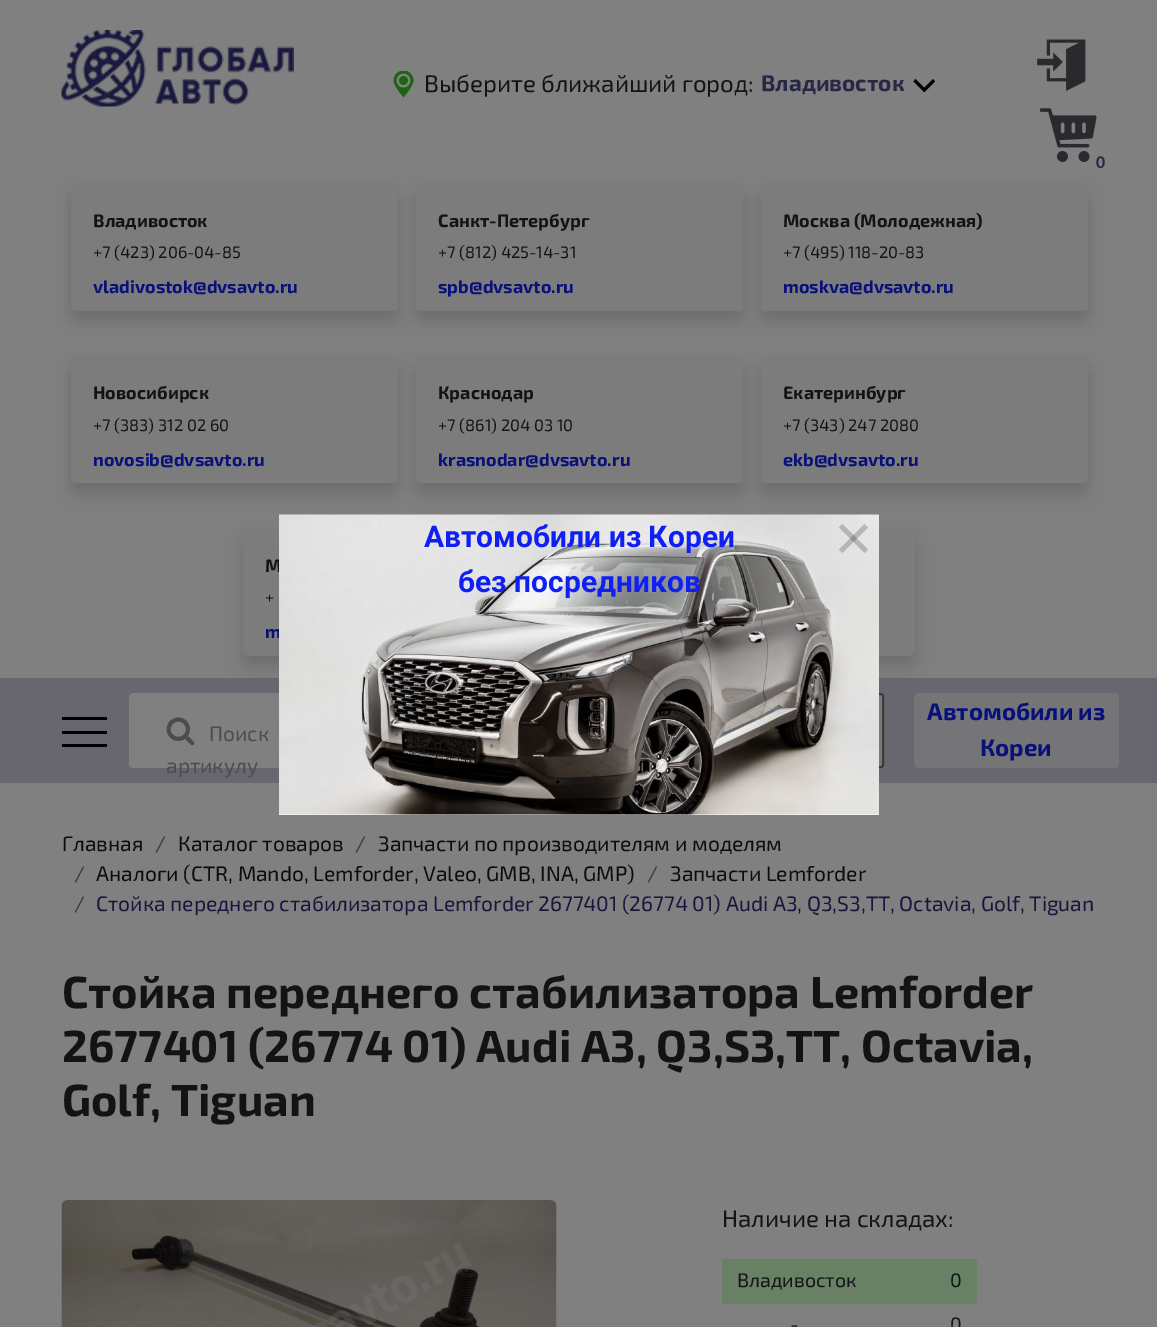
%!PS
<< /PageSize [1157 1327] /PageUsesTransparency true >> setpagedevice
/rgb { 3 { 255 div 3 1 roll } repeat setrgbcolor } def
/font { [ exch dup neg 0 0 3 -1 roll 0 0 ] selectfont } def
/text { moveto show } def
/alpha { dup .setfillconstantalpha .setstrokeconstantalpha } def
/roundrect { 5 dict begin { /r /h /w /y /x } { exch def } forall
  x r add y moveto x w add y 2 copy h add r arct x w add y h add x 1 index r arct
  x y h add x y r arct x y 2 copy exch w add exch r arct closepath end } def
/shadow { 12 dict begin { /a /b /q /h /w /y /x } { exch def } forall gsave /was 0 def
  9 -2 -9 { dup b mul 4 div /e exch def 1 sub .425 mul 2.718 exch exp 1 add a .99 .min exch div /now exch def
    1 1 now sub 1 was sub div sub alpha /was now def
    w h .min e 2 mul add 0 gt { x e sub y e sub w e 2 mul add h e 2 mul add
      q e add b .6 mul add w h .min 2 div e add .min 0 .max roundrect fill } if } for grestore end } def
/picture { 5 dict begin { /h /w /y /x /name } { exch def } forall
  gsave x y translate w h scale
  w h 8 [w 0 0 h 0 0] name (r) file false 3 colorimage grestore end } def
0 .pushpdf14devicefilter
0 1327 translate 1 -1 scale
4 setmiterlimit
128 128 128 rgb
0 0 1157 1327 rectfill
(img_01.rgb) 61 30 233 77 picture
(img_02.rgb) 393 71 21 27 picture
0 0 0 rgb
915.5 79 moveto 10.5 10.5 rlineto -2 2.5 rlineto -10.5 -10.5 rlineto closepath fill
922.5 89.5 moveto 10.5 -10.5 rlineto 2 2.5 rlineto -10.5 10.5 rlineto closepath fill
(img_03.rgb) 1037 39 49 52 picture
(img_04.rgb) 1040 108 57 54 picture
71 194 327 127 6 9 0.15 shadow
124 124 124 rgb
71 183 327 128 6 roundrect fill
0 0 0 rgb
416 194 327 127 6 9 0.15 shadow
124 124 124 rgb
416 183 327 128 6 roundrect fill
0 0 0 rgb
761 194 327 127 6 9 0.15 shadow
124 124 124 rgb
761 183 327 128 6 roundrect fill
0 0 0 rgb
71 366 327 128 6 9 0.15 shadow
124 124 124 rgb
71 356 327 127 6 roundrect fill
0 0 0 rgb
416 366 327 128 6 9 0.15 shadow
124 124 124 rgb
416 356 327 127 6 roundrect fill
0 0 0 rgb
761 366 327 128 6 9 0.15 shadow
124 124 124 rgb
761 356 327 127 6 roundrect fill
104 103 112 rgb
0 678 1157 105 rectfill
0 0 0 rgb
243 539 327 127 6 9 0.15 shadow
124 124 124 rgb
243 528 327 128 6 roundrect fill
0 0 0 rgb
588 539 327 127 6 9 0.15 shadow
124 124 124 rgb
588 528 327 128 6 roundrect fill
255 255 255 rgb
279 814 600 1 rectfill
(img_06.rgb) 61 1200 496 127 picture
104 128 100 rgb
722 1259 255 45 rectfill
0 0 0 rgb
62 717 45 3 rectfill
62 731 45 3 rectfill
62 744 45 3 rectfill
128 128 128 rgb
134 693 moveto 369 0 rlineto 0 75 rlineto -369 0 rlineto -3 0 -5 -2 -5 -5 rcurveto 0 -65 rlineto 0 -3 2 -5 5 -5 rcurveto closepath fill
(img_07.rgb) 166 717 29 29 picture
120 120 120 rgb
672 694 211 73 2 roundrect gsave fill grestore
59 59 59 rgb
2 setlinewidth
stroke
117 117 119 rgb
914 693 205 75 5 roundrect fill
/Exo2-Regular 24 font
17 19 21 rgb
(Выберите ближайший город:) 424 92 text
/Exo2-Bold 22.5 font
40 39 70 rgb
(Владивосток) 761 91 text
/Carlito-Bold 18 font
(0) 1096 168 text
/Exo2-Bold 18 font
17 19 21 rgb
(Владивосток) 93 227 text
/Exo2-Regular 16.5 font
(+7 \(423\) 206-04-85) 93 258 text
/Exo2-Bold 18 font
8 16 122 rgb
(vladivostok@dvsavto.ru) 93 293 text
17 19 21 rgb
(Санкт-Петербург) 438 227 text
/Exo2-Regular 16.5 font
(+7 \(812\) 425-14-31) 438 258 text
/Exo2-Bold 18 font
8 16 122 rgb
(spb@dvsavto.ru) 438 293 text
17 19 21 rgb
(Москва \(Молодежная\)) 783 227 text
/Exo2-Regular 16.5 font
(+7 \(495\) 118-20-83) 783 258 text
/Exo2-Bold 18 font
8 16 122 rgb
(moskva@dvsavto.ru) 783 293 text
17 19 21 rgb
(Новосибирск) 93 399 text
/Exo2-Regular 16.5 font
(+7 \(383\) 312 02 60) 93 431 text
/Exo2-Bold 18 font
8 16 122 rgb
(novosib@dvsavto.ru) 93 466 text
17 19 21 rgb
(Краснодар) 438 399 text
/Exo2-Regular 16.5 font
(+7 \(861\) 204 03 10) 438 431 text
/Exo2-Bold 18 font
8 16 122 rgb
(krasnodar@dvsavto.ru) 438 466 text
17 19 21 rgb
(Екатеринбург) 783 399 text
/Exo2-Regular 16.5 font
(+7 \(343\) 247 2080) 783 431 text
/Exo2-Bold 18 font
8 16 122 rgb
(ekb@dvsavto.ru) 783 466 text
17 19 21 rgb
(М) 265 572 text
/Exo2-Regular 16.5 font
(+) 265 603 text
/Exo2-Bold 18 font
8 16 122 rgb
(m) 265 638 text
(img_05.rgb) 279 514 600 301 picture
/Roboto-Bold 30 font
16 32 244 rgb
(Автомобили из Кореи) 424 547 text
(без посредников) 458 592 text
0.2 alpha
0 0 0 rgb
842.5 524 moveto 25.5 25.5 rlineto -3.5 3.5 rlineto -25.5 -25.5 rlineto closepath fill
839 549.5 moveto 25.5 -25.5 rlineto 3.5 3.5 rlineto -25.5 25.5 rlineto closepath fill
/Exo2-Regular 21 font
1 alpha
14 11 11 rgb
(Главная) 62 851 text
54 59 63 rgb
(/) 155 851 text
14 11 11 rgb
(Каталог товаров) 178 851 text
54 59 63 rgb
(/) 355 851 text
14 11 11 rgb
(Запчасти по производителям и моделям) 378 851 text
54 59 63 rgb
(/) 74 881 text
14 11 11 rgb
(Аналоги \(CTR, Mando, Lemforder, Valeo, GMB, INA, GMP\)) 96 881 text
54 59 63 rgb
(/) 647 881 text
14 11 11 rgb
(Запчасти Lemforder) 670 881 text
54 59 63 rgb
(/) 74 911 text
24 22 61 rgb
(Стойка переднего стабилизатора Lemforder 2677401 \(26774 01\) Audi A3, Q3,S3,TT, Octavia, Golf, Tiguan) 96 911 text
/Exo2-Bold 45 font
17 19 21 rgb
(Стойка переднего стабилизатора Lemforder) 62 1008 text
(2677401 \(26774 01\) Audi A3, Q3,S3,TT, Octavia,) 62 1062 text
(Golf, Tiguan) 62 1116 text
/Exo2-Regular 24 font
(Наличие на складах:) 722 1227 text
/Exo2-Regular 19.5 font
(Владивосток) 737 1287 text
(0) 950 1287 text
(-) 790 1331 text
(0) 950 1331 text
/Exo2-Regular 21 font
77 77 77 rgb
(Поиск) 209 741 text
(артикулу) 166 773 text
/Exo2-Bold 24 font
8 16 122 rgb
(Автомобили из) 927 720 text
(Кореи) 980 756 text
.poppdf14devicefilter showpage
